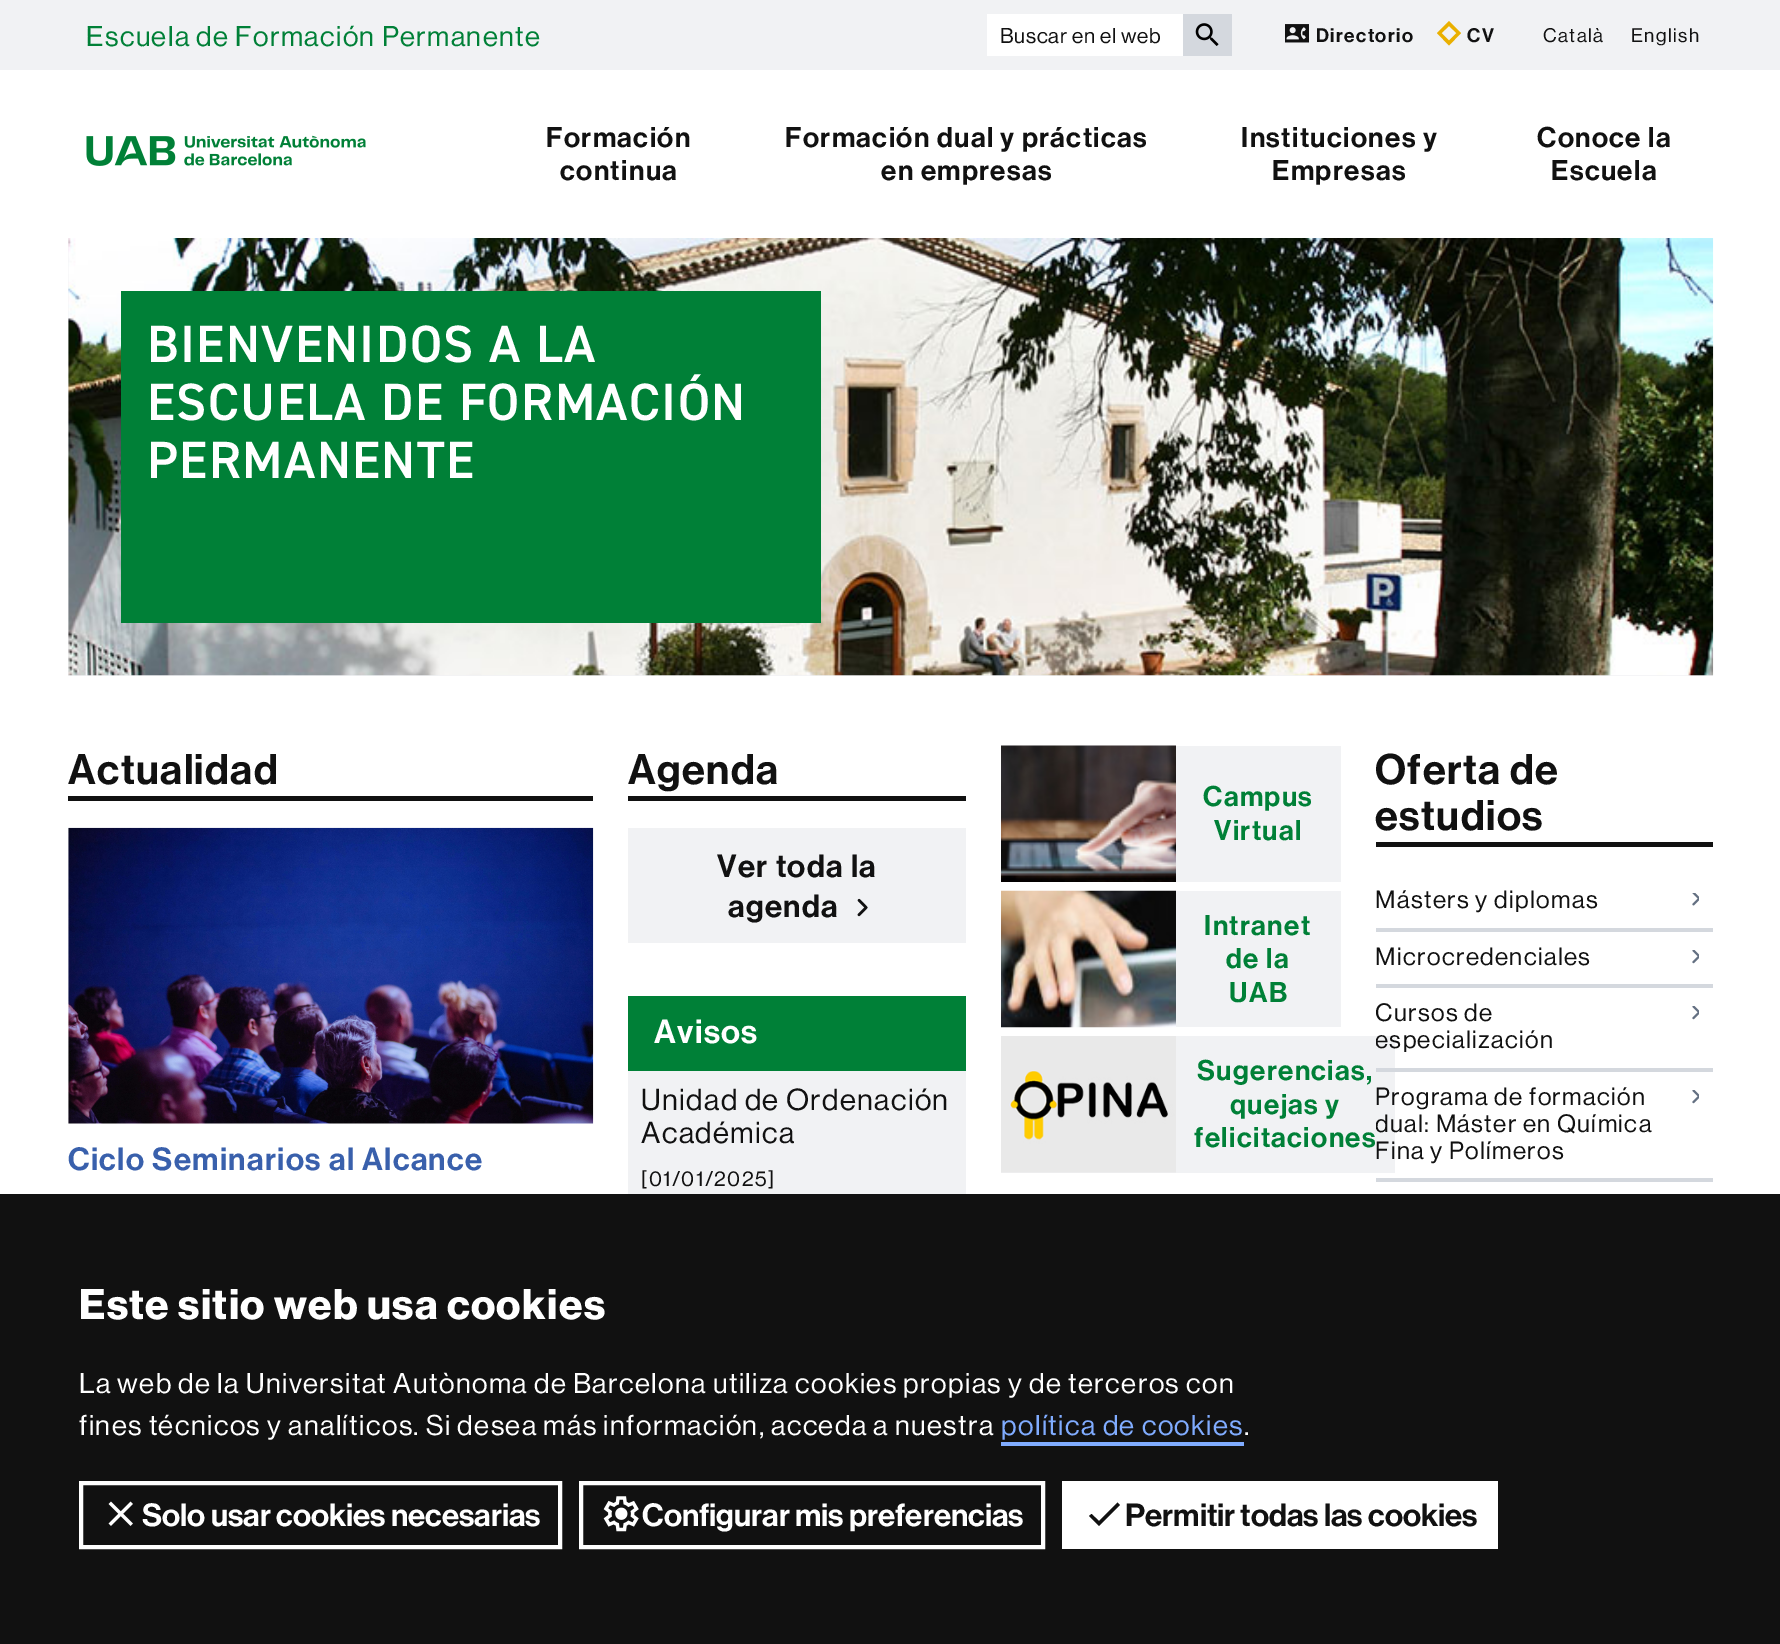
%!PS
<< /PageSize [1780 1644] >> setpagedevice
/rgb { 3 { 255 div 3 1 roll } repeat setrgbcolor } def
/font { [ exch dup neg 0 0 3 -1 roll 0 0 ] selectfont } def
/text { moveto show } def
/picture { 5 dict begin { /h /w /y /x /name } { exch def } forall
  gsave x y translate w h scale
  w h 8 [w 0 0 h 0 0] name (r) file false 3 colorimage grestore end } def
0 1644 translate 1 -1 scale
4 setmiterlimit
255 255 255 rgb
0 0 1780 1644 rectfill
241 242 244 rgb
0 0 1780 70 rectfill
255 255 255 rgb
987 14 196 42 rectfill
212 216 222 rgb
1183 14 49 42 rectfill
(img_01.rgb) 1195 23 24 23 picture
(img_02.rgb) 1285 24 24 19 picture
234 176 0 rgb
1449 45.5 moveto -12 -12.5 rlineto 12 -12 rlineto 12 12 rlineto closepath 1441.5 33 moveto 7.5 7.5 rlineto 7.5 -7.5 rlineto -7.5 -7 rlineto closepath fill
(img_03.rgb) 86 135 280 31 picture
241 242 244 rgb
68 238 1645 438 rectfill
(img_04.rgb) 68 238 1646 438 picture
0 128 55 rgb
121 291 700 332 rectfill
17 17 17 rgb
68 796 525 5 rectfill
(img_05.rgb) 68 827 526 297 picture
628 796 338 5 rectfill
241 242 244 rgb
628 828 338 115 rectfill
(img_06.rgb) 857 898 11 19 picture
0 128 55 rgb
628 996 338 75 rectfill
241 242 244 rgb
628 1071 338 123 rectfill
1176 746 165 136 rectfill
(img_07.rgb) 1001 745 175 137 picture
1176 891 165 136 rectfill
(img_08.rgb) 1001 890 175 138 picture
1001 1036 394 137 rectfill
(img_09.rgb) 1001 1036 175 137 picture
17 17 17 rgb
1376 842 337 5 rectfill
212 216 222 rgb
1376 928 337 4 rectfill
(img_10.rgb) 1692 893 7 13 picture
1376 984 337 4 rectfill
(img_11.rgb) 1692 950 7 14 picture
1376 1068 337 4 rectfill
(img_11.rgb) 1692 1006 7 14 picture
1376 1178 337 4 rectfill
(img_11.rgb) 1692 1090 7 14 picture
17 17 17 rgb
0 1194 1780 450 rectfill
128 172 255 rgb
1001 1442 243 4 rectfill
255 255 255 rgb
4 setlinewidth
81 1483 479 64 rectstroke
(img_12.rgb) 108 1501 25 25 picture
581 1483 462 64 rectstroke
(img_13.rgb) 603 1496 36 36 picture
1062 1481 436 68 rectfill
17 17 17 rgb
1099 1521 moveto -7.5 -7 rlineto -2.5 2 rlineto 10 10 rlineto 21 -21 rlineto -2.5 -2.5 rlineto closepath fill
/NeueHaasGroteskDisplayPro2-Medium 28 font
0 128 55 rgb
86 46 moveto 1.4 0 (Escuela de Formación Permanente) ashow
/NeueHaasGroteskDisplayPro2-Medium 21 font
17 17 17 rgb
1000 43 moveto 0.75 0 (Buscar en el web) ashow
/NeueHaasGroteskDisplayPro-Medium 19.25 font
1316 42 moveto 1.4 0 (Directorio) ashow
1467 42 moveto 1.4 0 (CV) ashow
/NeueHaasGroteskDisplayPro2-Medium 19.25 font
1543 42 moveto 1.4 0 (Català) ashow
1631 42 moveto 1.4 0 (English) ashow
/NeueHaasGroteskDisplayPro-Medium 28 font
546 147 moveto 1.4 0 (Formación) ashow
560 180 moveto 1.4 0 (continua) ashow
785 147 moveto 1.4 0 (Formación dual y prácticas) ashow
881 180 moveto 1.4 0 (en empresas) ashow
1241 147 moveto 1.4 0 (Instituciones y) ashow
1272 180 moveto 1.4 0 (Empresas) ashow
1537 147 moveto 1.4 0 (Conoce la) ashow
1551 180 moveto 1.4 0 (Escuela) ashow
/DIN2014-SemiBold 52.5 font
255 255 255 rgb
147 362 moveto 1.4 0 (BIENVENIDOS A LA) ashow
147 420 moveto 1.4 0 (ESCUELA DE FORMACIÓN) ashow
147 478 moveto 1.4 0 (PERMANENTE) ashow
/NeueHaasGroteskDisplayPro-Medium 42 font
17 17 17 rgb
68 784 moveto 1.4 0 (Actualidad) ashow
/NeueHaasGroteskDisplayPro-Medium 31.5 font
57 96 172 rgb
68 1170 moveto 1.4 0 (Ciclo Seminarios al Alcance) ashow
/NeueHaasGroteskDisplayPro-Medium 42 font
17 17 17 rgb
628 784 moveto 1.4 0 (Agenda) ashow
/NeueHaasGroteskDisplayPro-Medium 31.5 font
717 877 moveto 1.4 0 (Ver toda la) ashow
728 917 moveto 1.4 0 (agenda) ashow
/NeueHaasGroteskDisplayPro-Medium 33 font
255 255 255 rgb
654 1043 moveto 1.4 0 (Avisos) ashow
/NeueHaasGroteskDisplayPro2-Medium 29.75 font
17 17 17 rgb
641 1110 moveto 1.4 0 (Unidad de Ordenación) ashow
641 1143 moveto 1.4 0 (Académica) ashow
/NeueHaasGroteskDisplayPro2-Medium 21 font
641 1186 moveto 1.4 0 ([01/01/2025]) ashow
/NeueHaasGroteskDisplayPro-Medium 28 font
0 128 55 rgb
1203 806 moveto 1.4 0 (Campus) ashow
1214 840 moveto 1.4 0 (Virtual) ashow
1204 935 moveto 1.4 0 (Intranet) ashow
1226 968 moveto 1.4 0 (de la) ashow
1229 1002 moveto 1.4 0 (UAB) ashow
1197 1080 moveto 1.4 0 (Sugerencias,) ashow
1230 1114 moveto 1.4 0 (quejas y) ashow
1194 1147 moveto 1.4 0 (felicitaciones) ashow
/NeueHaasGroteskDisplayPro-Medium 42 font
17 17 17 rgb
1375 784 moveto 1.4 0 (Oferta de) ashow
1375 830 moveto 1.4 0 (estudios) ashow
/NeueHaasGroteskDisplayPro2-Medium 24.5 font
1375 908 moveto 1.4 0 (Másters y diplomas) ashow
1375 965 moveto 1.4 0 (Microcredenciales) ashow
1375 1021 moveto 1.4 0 (Cursos de) ashow
gsave
1376 987 337 81 rectclip
1375 1048 moveto 1.4 0 (especialización) ashow
grestore
1375 1105 moveto 1.4 0 (Programa de formación) ashow
gsave
1376 1071 337 107 rectclip
1375 1132 moveto 1.4 0 (dual: Máster en Química) ashow
grestore
1375 1159 moveto 1.4 0 (Fina y Polímeros) ashow
/NeueHaasGroteskDisplayPro-Bold 42 font
255 255 255 rgb
79 1319 moveto 1.4 0 (Este sitio web usa cookies) ashow
/NeueHaasGroteskDisplayPro2-Medium 28 font
79 1393 moveto 1.4 0 (La web de la Universitat Autònoma de Barcelona utiliza cookies propias y de terceros con) ashow
79 1435 moveto 1.4 0 (fines técnicos y analíticos. Si desea más información, acceda a nuestra) ashow
128 172 255 rgb
1001 1435 moveto 1.4 0 (política de cookies) ashow
255 255 255 rgb
1244 1435 moveto 1.4 0 (.) ashow
/NeueHaasGroteskDisplayPro-Medium 31.5 font
(Solo usar cookies necesarias) 142 1526 text
(Configurar mis preferencias) 642 1526 text
17 17 17 rgb
(Permitir todas las cookies) 1125 1526 text
showpage
